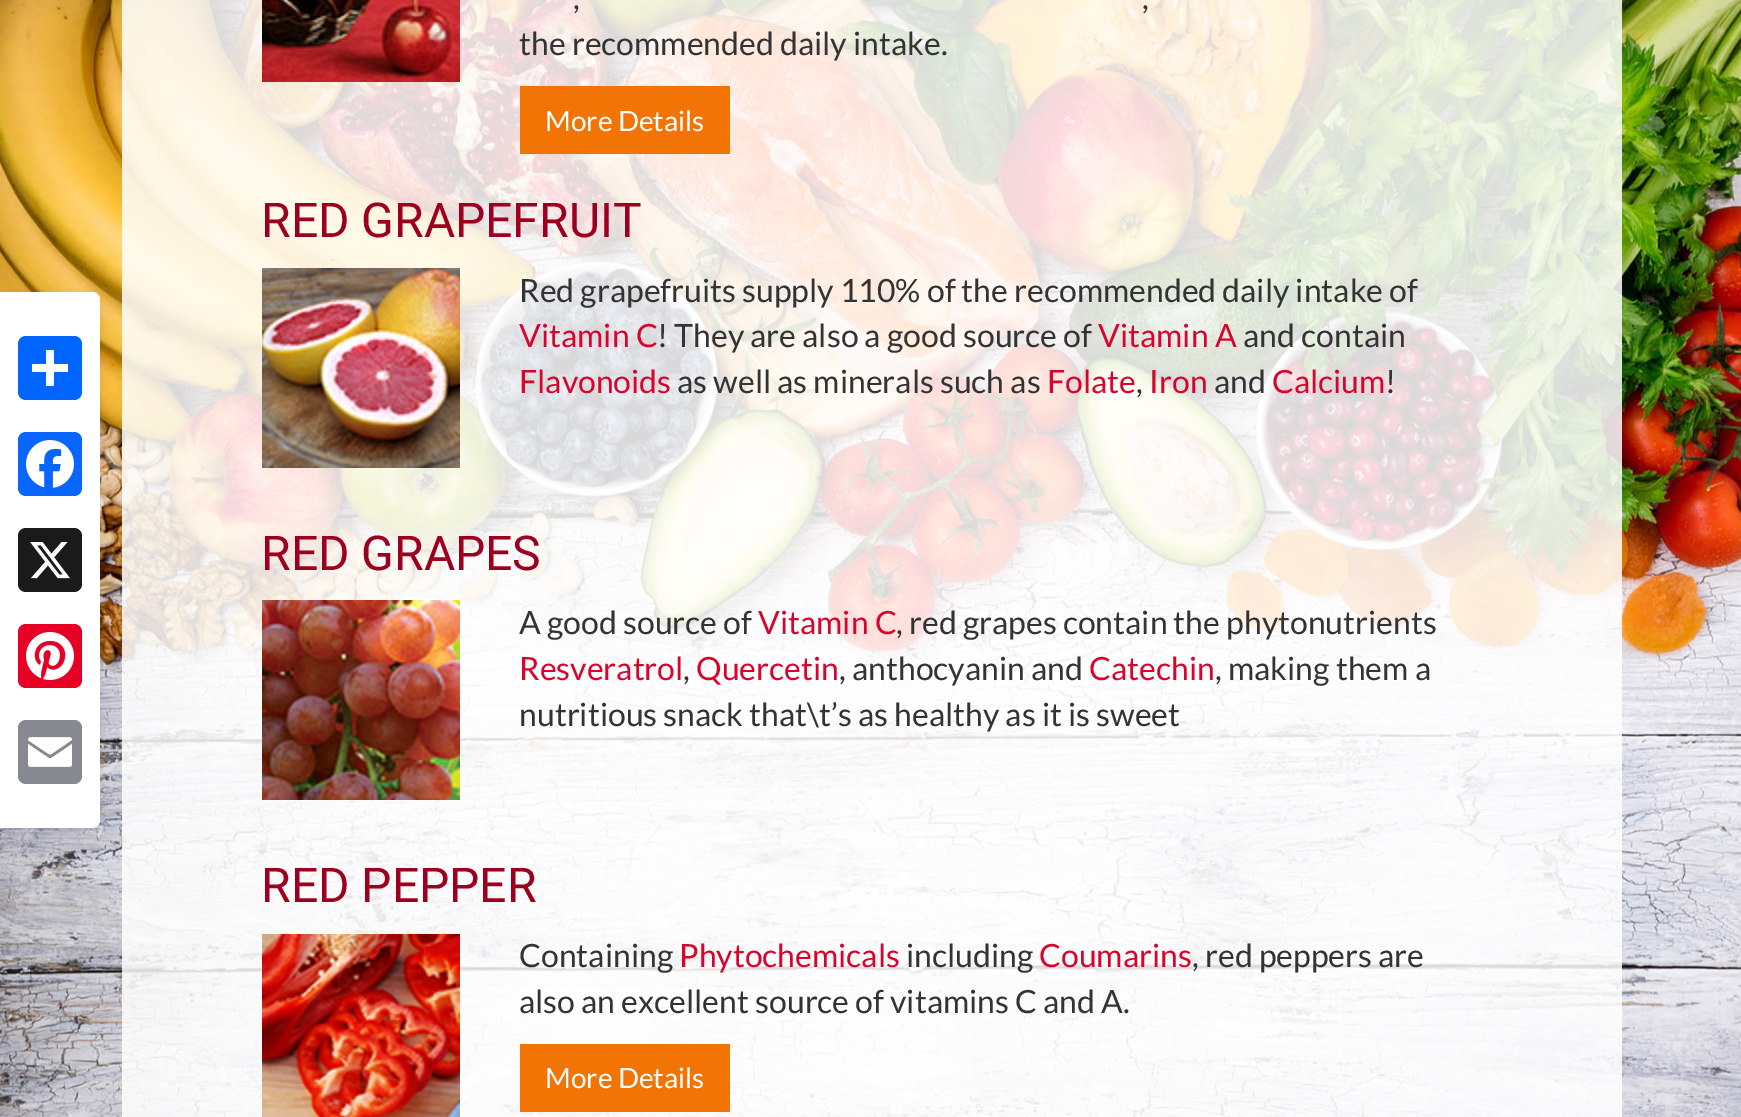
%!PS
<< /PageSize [1741 1117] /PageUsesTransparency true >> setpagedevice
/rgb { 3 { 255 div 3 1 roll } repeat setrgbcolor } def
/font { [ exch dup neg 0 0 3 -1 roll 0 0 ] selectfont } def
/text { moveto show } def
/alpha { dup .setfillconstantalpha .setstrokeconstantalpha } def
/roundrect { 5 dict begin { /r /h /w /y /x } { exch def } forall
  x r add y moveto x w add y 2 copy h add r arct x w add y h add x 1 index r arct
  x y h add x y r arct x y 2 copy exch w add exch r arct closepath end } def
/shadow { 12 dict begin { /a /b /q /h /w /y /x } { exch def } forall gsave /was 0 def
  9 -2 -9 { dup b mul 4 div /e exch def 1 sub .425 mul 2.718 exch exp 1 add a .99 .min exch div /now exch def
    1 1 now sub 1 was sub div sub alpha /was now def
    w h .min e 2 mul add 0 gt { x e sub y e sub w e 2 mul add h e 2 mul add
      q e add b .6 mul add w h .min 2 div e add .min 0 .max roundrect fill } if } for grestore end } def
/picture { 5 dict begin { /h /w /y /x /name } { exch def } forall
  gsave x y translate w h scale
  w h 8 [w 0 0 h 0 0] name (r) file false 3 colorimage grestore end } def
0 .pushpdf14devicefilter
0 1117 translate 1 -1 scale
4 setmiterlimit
255 255 255 rgb
0 0 1741 1117 rectfill
(img_01.rgb) 0 0 1741 1117 picture
0 0 0 rgb
0 296 100 536 8 5 0.1 shadow
255 255 255 rgb
0 292 moveto 92 0 rlineto 4.5 0 8 3.5 8 8 rcurveto 0 520 rlineto 0 4.5 -3.5 8 -8 8 rcurveto -92 0 rlineto closepath fill
1 102 255 rgb
18 336 64 64 8 roundrect fill
255 255 255 rgb
46 350 8 36 rectfill
32 364 36 8 rectfill
8 102 255 rgb
18 432 64 64 8 roundrect fill
(img_02.rgb) 26 440 48 48 picture
26 26 26 rgb
18 528 64 64 8 roundrect fill
(img_03.rgb) 30 542 40 37 picture
230 0 35 rgb
18 624 64 64 8 roundrect fill
(img_04.rgb) 26 632 48 48 picture
136 137 144 rgb
18 720 64 64 8 roundrect fill
(img_05.rgb) 28 737 44 30 picture
0.85 alpha
255 255 255 rgb
122 0 1500 1117 rectfill
1 alpha
(img_06.rgb) 262 0 198 82 picture
242 116 5 rgb
520 86 210 68 rectfill
(img_07.rgb) 262 268 198 200 picture
(img_08.rgb) 262 600 198 200 picture
(img_09.rgb) 262 934 198 183 picture
520 1044 210 68 rectfill
/Lato-Regular 32 font
51 51 51 rgb
(,) 573 9 text
(,) 1142 9 text
(the recommended daily intake.) 519 55 text
/Lato-Regular 28 font
255 255 255 rgb
(More Details) 545 131 text
/Roboto-Regular 48 font
157 0 30 rgb
(RED GRAPEFRUIT) 261 237 text
/Lato-Regular 32 font
51 51 51 rgb
(Red grapefruits supply 110% of the recommended daily intake of) 519 302 text
217 4 45 rgb
(Vitamin C) 519 347 text
51 51 51 rgb
(! They are also a good source of) 657 347 text
217 4 45 rgb
(Vitamin A) 1098 347 text
51 51 51 rgb
(and contain) 1243 347 text
217 4 45 rgb
(Flavonoids) 519 393 text
51 51 51 rgb
(as well as minerals such as) 677 393 text
217 4 45 rgb
(Folate) 1047 393 text
51 51 51 rgb
(,) 1136 393 text
217 4 45 rgb
(Iron) 1149 393 text
51 51 51 rgb
(and) 1214 393 text
217 4 45 rgb
(Calcium) 1272 393 text
51 51 51 rgb
(!) 1385 393 text
/Roboto-Regular 48 font
157 0 30 rgb
(RED GRAPES) 261 570 text
/Lato-Regular 32 font
51 51 51 rgb
(A good source of) 519 634 text
217 4 45 rgb
(Vitamin C) 758 634 text
51 51 51 rgb
(, red grapes contain the phytonutrients) 896 634 text
217 4 45 rgb
(Resveratrol) 519 680 text
51 51 51 rgb
(,) 683 680 text
217 4 45 rgb
(Quercetin) 696 680 text
51 51 51 rgb
(, anthocyanin and) 839 680 text
217 4 45 rgb
(Catechin) 1089 680 text
51 51 51 rgb
(, making them a) 1215 680 text
(nutritious snack that\\t’s as healthy as it is sweet) 519 726 text
/Roboto-Regular 48 font
157 0 30 rgb
(RED PEPPER) 261 902 text
/Lato-Regular 32 font
51 51 51 rgb
(Containing) 519 967 text
217 4 45 rgb
(Phytochemicals) 679 967 text
51 51 51 rgb
(including) 906 967 text
217 4 45 rgb
(Coumarins) 1039 967 text
51 51 51 rgb
(, red peppers are) 1192 967 text
(also an excellent source of vitamins C and A.) 519 1013 text
/Lato-Regular 28 font
255 255 255 rgb
(More Details) 545 1088 text
.poppdf14devicefilter showpage
